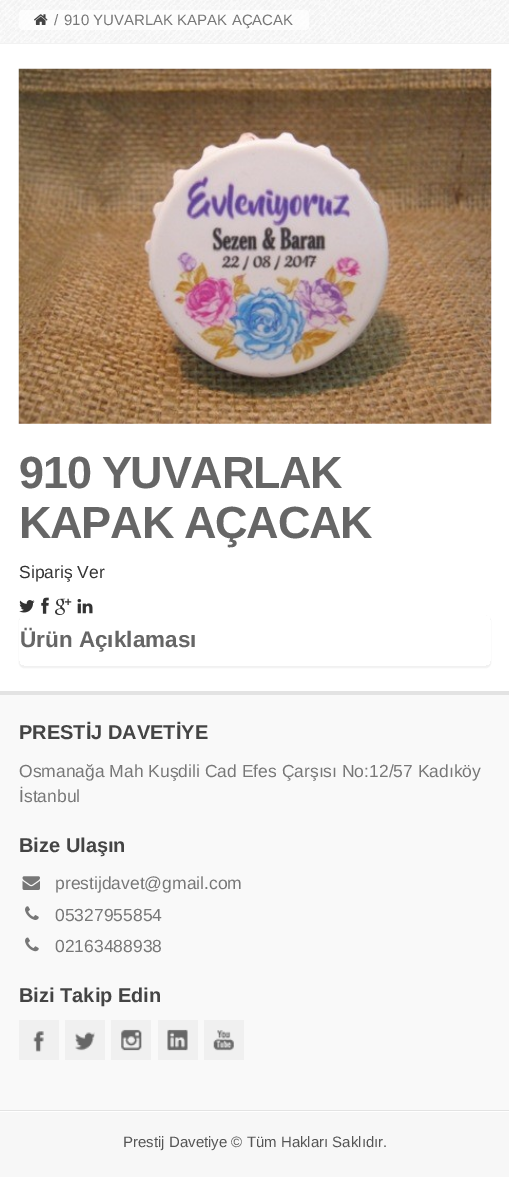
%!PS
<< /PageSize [509 1177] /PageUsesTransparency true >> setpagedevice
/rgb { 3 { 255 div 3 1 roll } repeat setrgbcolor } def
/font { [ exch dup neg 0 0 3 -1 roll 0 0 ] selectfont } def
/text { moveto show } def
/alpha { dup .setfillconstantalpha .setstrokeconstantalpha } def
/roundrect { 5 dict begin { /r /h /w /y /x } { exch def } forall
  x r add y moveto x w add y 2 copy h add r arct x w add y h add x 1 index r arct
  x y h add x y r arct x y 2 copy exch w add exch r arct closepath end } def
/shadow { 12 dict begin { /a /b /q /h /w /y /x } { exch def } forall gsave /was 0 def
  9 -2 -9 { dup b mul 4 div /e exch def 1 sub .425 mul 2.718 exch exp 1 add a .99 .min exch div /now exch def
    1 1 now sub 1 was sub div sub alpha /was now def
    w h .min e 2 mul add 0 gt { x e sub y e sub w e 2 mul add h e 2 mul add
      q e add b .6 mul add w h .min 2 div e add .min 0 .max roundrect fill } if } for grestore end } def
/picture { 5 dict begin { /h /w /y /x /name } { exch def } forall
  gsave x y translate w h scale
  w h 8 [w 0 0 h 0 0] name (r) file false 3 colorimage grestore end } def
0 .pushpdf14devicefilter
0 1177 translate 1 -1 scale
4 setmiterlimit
255 255 255 rgb
0 0 509 1177 rectfill
(img_01.rgb) 0 0 509 43 picture
242 242 242 rgb
0 43 509 1 rectfill
0.7 alpha
255 255 255 rgb
19 10 290 20 4 roundrect fill
1 alpha
(img_02.rgb) 34 14 14 11 picture
(img_03.rgb) 18 68 474 356 picture
(img_04.rgb) 19 600 16 13 picture
gsave
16 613 moveto 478 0 rlineto 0 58 rlineto -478 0 rlineto closepath 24 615 moveto 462 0 rlineto 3 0 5 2 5 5 rcurveto 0 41 rlineto 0 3 -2 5 -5 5 rcurveto -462 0 rlineto -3 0 -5 -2 -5 -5 rcurveto 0 -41 rlineto 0 -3 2 -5 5 -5 rcurveto closepath eoclip newpath
0 0 0 rgb
19 616 472 52 5 0.5 0.05 shadow
grestore
(img_05.rgb) 41 597 8 17 picture
(img_06.rgb) 55 598 17 17 picture
(img_07.rgb) 77 599 16 15 picture
249 249 249 rgb
0 695 509 415 rectfill
227 227 227 rgb
0 691 509 4 rectfill
0 1110 509 1 rectfill
(img_08.rgb) 22 876 18 14 picture
(img_09.rgb) 25 906 14 14 picture
(img_10.rgb) 25 937 14 15 picture
240 240 240 rgb
19 1020 40 40 rectfill
(img_11.rgb) 33 1031 11 21 picture
65 1020 40 40 rectfill
(img_12.rgb) 75 1032 20 19 picture
111 1020 40 40 rectfill
(img_13.rgb) 121 1029 21 22 picture
158 1020 40 40 rectfill
(img_14.rgb) 167 1029 21 22 picture
204 1020 40 40 rectfill
(img_15.rgb) 213 1030 21 21 picture
247 247 247 rgb
0 1112 509 65 rectfill
/LiberationSans-Regular 15 font
119 119 119 rgb
(/) 54 25 text
(910 YUVARLAK KAPAK AÇACAK) 64 25 text
/LiberationSans-Bold 45 font
102 102 102 rgb
19 488 moveto -1.25 0 (910 YUVARLAK) ashow
19 538 moveto -1.25 0 (KAPAK AÇACAK) ashow
/LiberationSans-Regular 17.5 font
51 51 51 rgb
(Sipariş Ver) 19 578 text
/LiberationSans-Bold 22.5 font
102 102 102 rgb
(Ürün Açıklaması) 20 647 text
/LiberationSans-Bold 20 font
68 68 68 rgb
(PRESTİJ DAVETİYE) 19 739 text
/LiberationSans-Regular 17.5 font
119 119 119 rgb
(Osmanağa Mah Kuşdili Cad Efes Çarşısı No:12/57 Kadıköy) 19 777 text
(İstanbul) 19 802 text
/LiberationSans-Bold 20 font
68 68 68 rgb
(Bize Ulaşın) 19 852 text
/LiberationSans-Regular 17.5 font
119 119 119 rgb
(prestijdavet@gmail.com) 55 889 text
(05327955854) 55 921 text
(02163488938) 55 952 text
/LiberationSans-Bold 20 font
68 68 68 rgb
(Bizi Takip Edin) 19 1002 text
/LiberationSans-Regular 15 font
85 85 85 rgb
(Prestij Davetiye © Tüm Hakları Saklıdır.) 123 1147 text
.poppdf14devicefilter showpage
